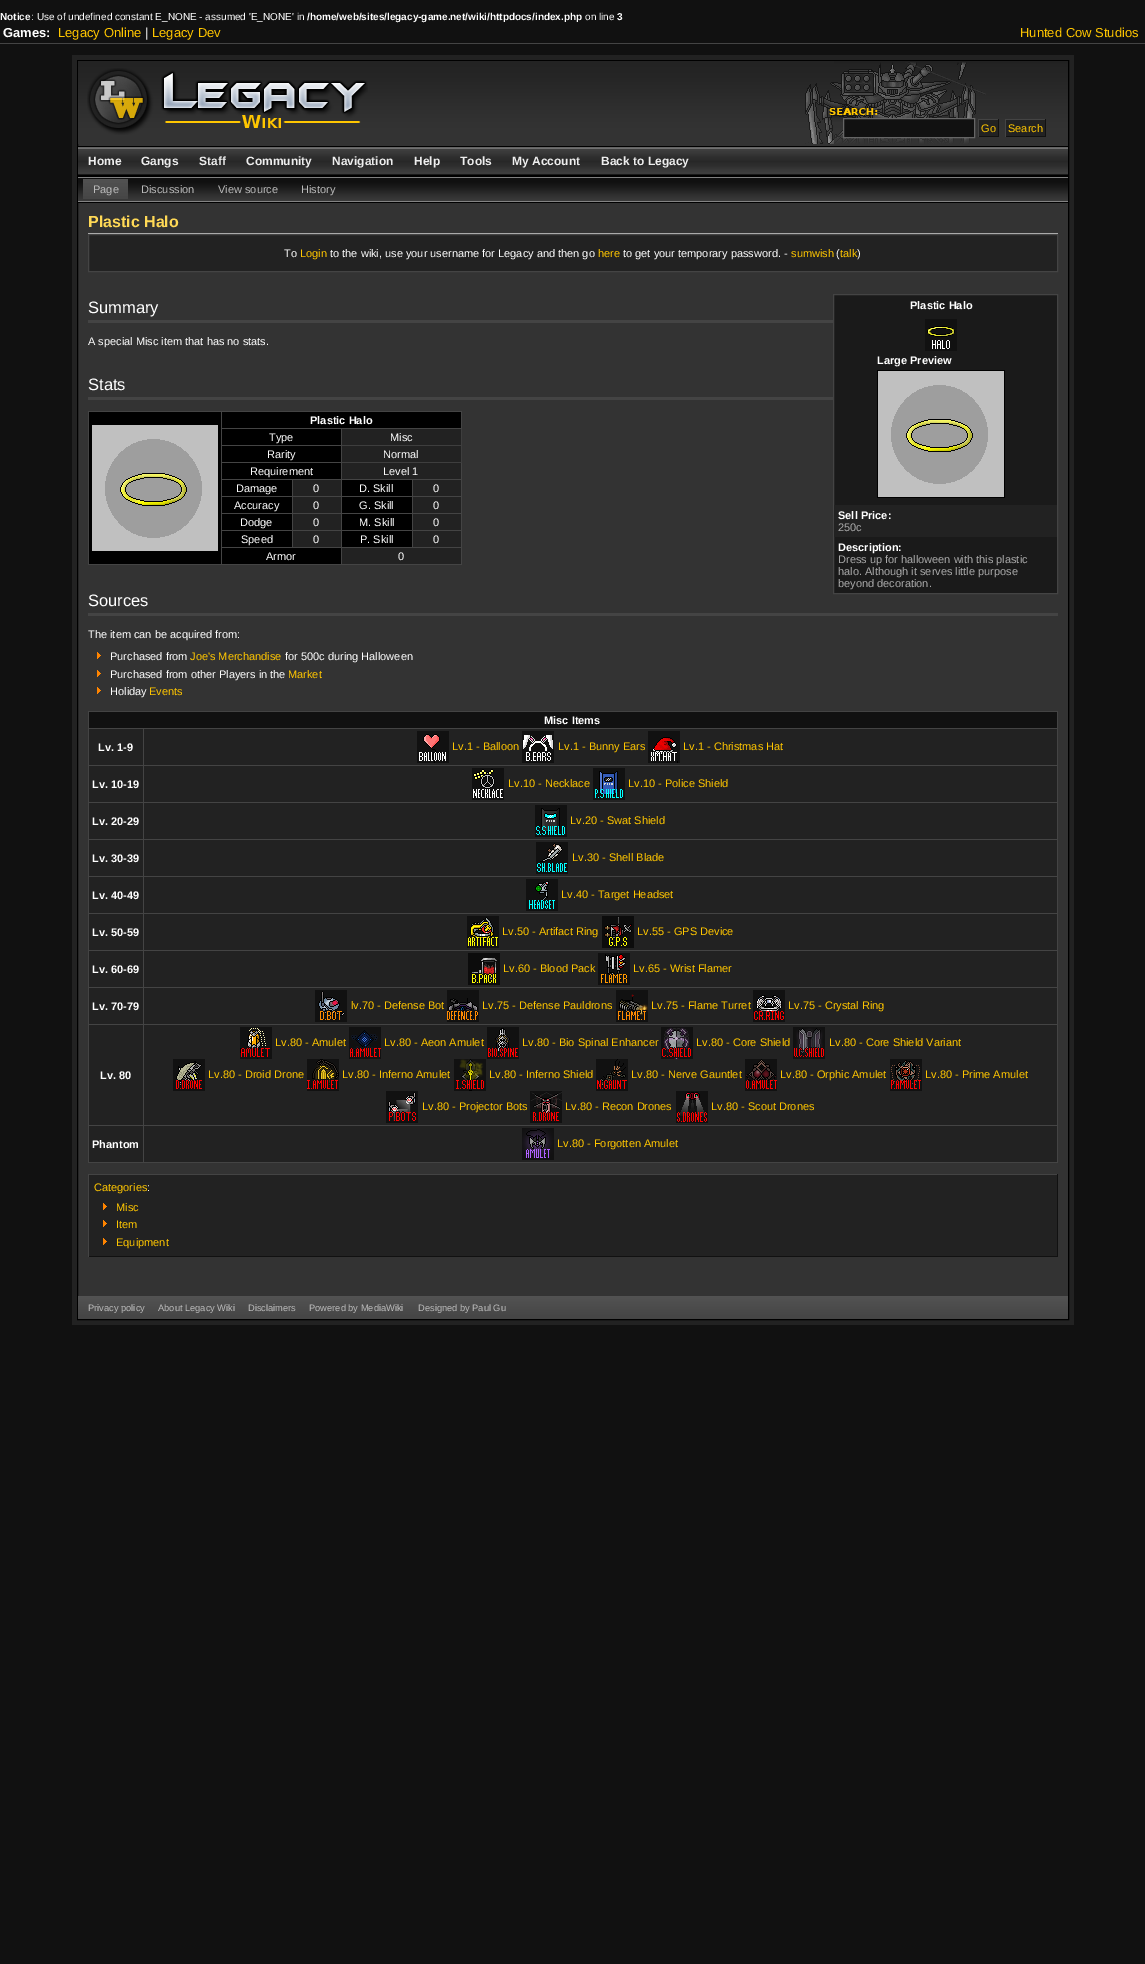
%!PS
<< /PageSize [1145 1964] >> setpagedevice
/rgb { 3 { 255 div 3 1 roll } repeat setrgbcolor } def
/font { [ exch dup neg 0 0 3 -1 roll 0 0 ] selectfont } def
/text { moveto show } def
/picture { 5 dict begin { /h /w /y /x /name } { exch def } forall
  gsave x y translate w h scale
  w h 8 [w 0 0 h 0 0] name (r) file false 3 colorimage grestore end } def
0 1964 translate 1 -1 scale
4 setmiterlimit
17 17 17 rgb
0 0 1145 1964 rectfill
68 68 68 rgb
0 43 1145 1 rectfill
34 34 34 rgb
72 55 1002 1270 rectfill
51 51 51 rgb
78 144 990 1152 rectfill
0 0 0 rgb
77.5 60.5 991 1259 rectstroke
(img_01.rgb) 78 61 990 83 picture
(img_02.rgb) 87 68 281 67 picture
17 17 17 rgb
843.5 118.5 moveto 131 0 rlineto 0 19 rlineto -131 0 rlineto closepath gsave fill grestore
102 102 102 rgb
stroke
34 34 34 rgb
979 120 19 16 rectfill
68 68 68 rgb
978 119 21 1 rectfill
17 17 17 rgb
998 119 1 18 rectfill
978 136 21 1 rectfill
68 68 68 rgb
978 119 1 18 rectfill
34 34 34 rgb
1006 120 39 16 rectfill
68 68 68 rgb
1005 119 41 1 rectfill
17 17 17 rgb
1045 119 1 18 rectfill
1005 136 41 1 rectfill
68 68 68 rgb
1005 119 1 18 rectfill
(img_03.rgb) 78 147 990 28 picture
0 0 0 rgb
78 146 990 1 rectfill
78 175 990 1 rectfill
(img_04.rgb) 78 176 990 27 picture
(img_05.rgb) 83 179 45 20 picture
170 170 170 rgb
88 233 970 1 rectfill
34 34 34 rgb
88.5 234.5 moveto 969 0 rlineto 0 37 rlineto -969 0 rlineto closepath gsave fill grestore
68 68 68 rgb
stroke
88 320 745 3 rectfill
26 26 26 rgb
833.5 294.5 moveto 224 0 rlineto 0 299 rlineto -224 0 rlineto closepath gsave fill grestore
68 68 68 rgb
stroke
(img_06.rgb) 925 319 32 32 picture
(img_07.rgb) 877 370 128 128 picture
34 34 34 rgb
834 505 223 32 rectfill
68 68 68 rgb
88 397 745 3 rectfill
62 62 62 rgb
461 429 1 16 rectfill
0 0 0 rgb
89 412 132 152 rectfill
68 68 68 rgb
221 411 241 1 rectfill
461 411 1 18 rectfill
221 445 121 1 rectfill
412 479 50 1 rectfill
412 496 50 1 rectfill
412 513 50 1 rectfill
412 530 50 1 rectfill
341 547 121 1 rectfill
461 547 1 18 rectfill
461 530 1 18 rectfill
461 513 1 18 rectfill
461 496 1 18 rectfill
461 462 1 35 rectfill
62 62 62 rgb
461 445 1 18 rectfill
68 68 68 rgb
412 530 1 18 rectfill
341 530 72 1 rectfill
412 513 1 18 rectfill
341 513 72 1 rectfill
412 496 1 18 rectfill
341 496 72 1 rectfill
412 479 1 18 rectfill
341 479 72 1 rectfill
341 564 121 1 rectfill
341 547 1 18 rectfill
221 547 121 1 rectfill
341 530 1 18 rectfill
292 530 50 1 rectfill
341 513 1 18 rectfill
292 513 50 1 rectfill
341 496 1 18 rectfill
292 496 50 1 rectfill
341 479 1 18 rectfill
292 479 50 1 rectfill
341 462 1 18 rectfill
221 462 121 1 rectfill
62 62 62 rgb
341 462 121 1 rectfill
68 68 68 rgb
341 445 1 18 rectfill
62 62 62 rgb
341 445 121 1 rectfill
68 68 68 rgb
341 428 1 18 rectfill
292 530 1 18 rectfill
221 530 72 1 rectfill
292 513 1 18 rectfill
221 513 72 1 rectfill
292 496 1 18 rectfill
221 496 72 1 rectfill
292 479 1 18 rectfill
221 479 72 1 rectfill
221 564 121 1 rectfill
221 547 1 18 rectfill
221 530 1 18 rectfill
221 513 1 18 rectfill
221 496 1 18 rectfill
221 479 1 18 rectfill
221 462 1 18 rectfill
221 428 1 35 rectfill
221 428 241 1 rectfill
221 411 1 18 rectfill
88 411 134 1 rectfill
88 564 134 1 rectfill
88 411 1 154 rectfill
(img_08.rgb) 92 425 126 126 picture
0 0 0 rgb
222 412 239 16 rectfill
222 429 119 16 rectfill
34 34 34 rgb
342 429 119 16 rectfill
0 0 0 rgb
222 446 119 16 rectfill
34 34 34 rgb
342 446 119 16 rectfill
0 0 0 rgb
222 463 119 16 rectfill
34 34 34 rgb
342 463 119 16 rectfill
0 0 0 rgb
222 480 70 16 rectfill
34 34 34 rgb
293 480 48 16 rectfill
0 0 0 rgb
342 480 70 16 rectfill
34 34 34 rgb
413 480 48 16 rectfill
0 0 0 rgb
222 497 70 16 rectfill
34 34 34 rgb
293 497 48 16 rectfill
0 0 0 rgb
342 497 70 16 rectfill
34 34 34 rgb
413 497 48 16 rectfill
0 0 0 rgb
222 514 70 16 rectfill
34 34 34 rgb
293 514 48 16 rectfill
0 0 0 rgb
342 514 70 16 rectfill
34 34 34 rgb
413 514 48 16 rectfill
0 0 0 rgb
222 531 70 16 rectfill
34 34 34 rgb
293 531 48 16 rectfill
0 0 0 rgb
342 531 70 16 rectfill
34 34 34 rgb
413 531 48 16 rectfill
0 0 0 rgb
222 548 119 16 rectfill
34 34 34 rgb
342 548 119 16 rectfill
68 68 68 rgb
88 613 970 3 rectfill
(img_09.rgb) 97 652 4 7 picture
(img_09.rgb) 97 670 4 7 picture
(img_09.rgb) 97 687 4 7 picture
17 17 17 rgb
89 712 968 16 rectfill
68 68 68 rgb
88 711 970 1 rectfill
143 728 915 1 rectfill
143 765 915 1 rectfill
143 802 915 1 rectfill
143 839 915 1 rectfill
143 876 915 1 rectfill
143 913 915 1 rectfill
143 950 915 1 rectfill
143 987 915 1 rectfill
143 1024 915 1 rectfill
143 1125 915 1 rectfill
1057 1125 1 38 rectfill
1057 1024 1 102 rectfill
1057 987 1 38 rectfill
1057 950 1 38 rectfill
1057 913 1 38 rectfill
1057 876 1 38 rectfill
1057 839 1 38 rectfill
1057 802 1 38 rectfill
1057 765 1 38 rectfill
1057 728 1 38 rectfill
1057 711 1 18 rectfill
143 1162 915 1 rectfill
143 1125 1 38 rectfill
88 1125 56 1 rectfill
143 1024 1 102 rectfill
88 1024 56 1 rectfill
143 987 1 38 rectfill
88 987 56 1 rectfill
143 950 1 38 rectfill
88 950 56 1 rectfill
143 913 1 38 rectfill
88 913 56 1 rectfill
143 876 1 38 rectfill
88 876 56 1 rectfill
143 839 1 38 rectfill
88 839 56 1 rectfill
143 802 1 38 rectfill
88 802 56 1 rectfill
143 765 1 38 rectfill
88 765 56 1 rectfill
143 728 1 38 rectfill
88 728 56 1 rectfill
88 1162 56 1 rectfill
88 1125 1 38 rectfill
88 1024 1 102 rectfill
88 987 1 38 rectfill
88 950 1 38 rectfill
88 913 1 38 rectfill
88 876 1 38 rectfill
88 839 1 38 rectfill
88 802 1 38 rectfill
88 765 1 38 rectfill
88 728 1 38 rectfill
88 711 1 18 rectfill
34 34 34 rgb
89 729 54 36 rectfill
144 729 913 36 rectfill
(img_10.rgb) 417 731 32 32 picture
(img_11.rgb) 522 731 32 32 picture
(img_12.rgb) 648 731 32 32 picture
89 766 54 36 rectfill
144 766 913 36 rectfill
(img_13.rgb) 472 768 32 32 picture
(img_14.rgb) 593 768 32 32 picture
89 803 54 36 rectfill
144 803 913 36 rectfill
(img_15.rgb) 535 805 32 32 picture
89 840 54 36 rectfill
144 840 913 36 rectfill
(img_16.rgb) 536 842 32 32 picture
89 877 54 36 rectfill
144 877 913 36 rectfill
(img_17.rgb) 526 879 32 32 picture
89 914 54 36 rectfill
144 914 913 36 rectfill
(img_18.rgb) 467 916 32 32 picture
(img_19.rgb) 602 916 32 32 picture
89 951 54 36 rectfill
144 951 913 36 rectfill
(img_20.rgb) 468 953 32 32 picture
(img_21.rgb) 598 953 32 32 picture
89 988 54 36 rectfill
144 988 913 36 rectfill
(img_22.rgb) 315 990 32 32 picture
(img_23.rgb) 447 990 32 32 picture
(img_24.rgb) 616 990 32 32 picture
(img_25.rgb) 753 990 32 32 picture
89 1025 54 100 rectfill
144 1025 913 100 rectfill
(img_26.rgb) 240 1027 32 32 picture
(img_27.rgb) 349 1027 32 32 picture
(img_28.rgb) 487 1027 32 32 picture
(img_29.rgb) 661 1027 32 32 picture
(img_30.rgb) 793 1027 32 32 picture
(img_31.rgb) 173 1059 32 32 picture
(img_32.rgb) 307 1059 32 32 picture
(img_33.rgb) 454 1059 32 32 picture
(img_34.rgb) 596 1059 32 32 picture
(img_35.rgb) 745 1059 32 32 picture
(img_36.rgb) 890 1059 32 32 picture
(img_37.rgb) 386 1091 32 32 picture
(img_38.rgb) 530 1091 32 32 picture
(img_39.rgb) 676 1091 32 32 picture
89 1126 54 36 rectfill
144 1126 913 36 rectfill
(img_40.rgb) 522 1128 32 32 picture
89 1175 968 81 rectfill
68 68 68 rgb
88 1174 970 1 rectfill
17 17 17 rgb
1057 1174 1 83 rectfill
88 1256 970 1 rectfill
68 68 68 rgb
88 1174 1 83 rectfill
(img_41.rgb) 103 1203 4 7 picture
(img_41.rgb) 103 1220 4 7 picture
(img_41.rgb) 103 1238 4 7 picture
(img_42.rgb) 78 1296 990 23 picture
/LiberationSans-Bold 10 font
255 255 255 rgb
(Notice) 0 20 text
/LiberationSans-Regular 10 font
(: Use of undefined constant E_NONE - assumed 'E_NONE' in) 31 20 text
/LiberationSans-Bold 10 font
(/home/web/sites/legacy-game.net/wiki/httpdocs/index.php) 307 20 text
/LiberationSans-Regular 10 font
(on line) 585 20 text
/LiberationSans-Bold 10 font
(3) 617 20 text
/LiberationSans-Bold 13 font
(Games:) 3 37 text
/LiberationSans-Regular 13 font
255 198 0 rgb
(Legacy Online) 58 37 text
255 255 255 rgb
(|) 145 37 text
255 198 0 rgb
(Legacy Dev) 152 37 text
(Hunted Cow Studios) 1020 37 text
/LiberationSans-Regular 11 font
(Go) 981 132 text
(Search) 1008 132 text
/LiberationSans-Bold 12 font
238 238 238 rgb
(Home) 88 165 text
(Gangs) 141 165 text
(Staff) 199 165 text
(Community) 246 165 text
(Navigation) 332 165 text
(Help) 414 165 text
(Tools) 460 165 text
(My Account) 512 165 text
(Back to Legacy) 601 165 text
/LiberationSans-Regular 11 font
187 187 187 rgb
(Page) 93 193 text
(Discussion) 141 193 text
(View source) 218 193 text
(History) 301 193 text
/LiberationSans-Bold 16 font
255 217 86 rgb
(Plastic Halo) 88 227 text
/LiberationSans-Regular 11 font
255 255 255 rgb
(To) 284 257 text
255 198 0 rgb
(Login) 300 257 text
255 255 255 rgb
(to the wiki, use your username for Legacy and then go) 330 257 text
255 198 0 rgb
(here) 598 257 text
255 255 255 rgb
(to get your temporary password. -) 623 257 text
255 198 0 rgb
(sumwish) 791 257 text
255 255 255 rgb
(\() 836 257 text
255 198 0 rgb
(talk) 840 257 text
255 255 255 rgb
(\)) 857 257 text
/LiberationSans-Regular 16.5 font
(Summary) 88 313 text
/LiberationSans-Bold 11 font
(Plastic Halo) 910 309 text
(Large Preview) 877 364 text
(Sell Price:) 838 519 text
/LiberationSans-Regular 11 font
170 170 170 rgb
(250c) 838 531 text
/LiberationSans-Bold 11 font
255 255 255 rgb
(Description:) 838 551 text
/LiberationSans-Regular 11 font
170 170 170 rgb
(Dress up for halloween with this plastic) 838 563 text
(halo. Although it serves little purpose) 838 575 text
(beyond decoration.) 838 587 text
255 255 255 rgb
(A special Misc item that has no stats.) 88 345 text
/LiberationSans-Regular 16.5 font
(Stats) 88 390 text
/LiberationSans-Bold 11 font
(Plastic Halo) 310 424 text
/LiberationSans-Regular 11 font
(Type) 269 441 text
(Misc) 390 441 text
(Rarity) 267 458 text
(Normal) 383 458 text
(Requirement) 250 475 text
(Level 1) 383 475 text
(Damage) 236 492 text
(0) 313 492 text
(D. Skill) 359 492 text
(0) 433 492 text
(Accuracy) 234 509 text
(0) 313 509 text
(G. Skill) 359 509 text
(0) 433 509 text
(Dodge) 240 526 text
(0) 313 526 text
(M. Skill) 359 526 text
(0) 433 526 text
(Speed) 241 543 text
(0) 313 543 text
(P. Skill) 360 543 text
(0) 433 543 text
(Armor) 266 560 text
(0) 398 560 text
/LiberationSans-Regular 16.5 font
(Sources) 88 606 text
/LiberationSans-Regular 11 font
(The item can be acquired from:) 88 638 text
(Purchased from) 110 660 text
255 198 0 rgb
(Joe's Merchandise) 190 660 text
255 255 255 rgb
(for 500c during Halloween) 285 660 text
(Purchased from other Players in the) 110 678 text
255 198 0 rgb
(Market) 288 678 text
255 255 255 rgb
(Holiday) 110 695 text
255 198 0 rgb
(Events) 149 695 text
/LiberationSans-Bold 11 font
255 255 255 rgb
(Misc Items) 544 724 text
(Lv. 1-9) 98 751 text
/LiberationSans-Regular 11 font
255 198 0 rgb
(Lv.1 - Balloon) 452 750 text
(Lv.1 - Bunny Ears) 558 750 text
(Lv.1 - Christmas Hat) 683 750 text
/LiberationSans-Bold 11 font
255 255 255 rgb
(Lv. 10-19) 92 788 text
/LiberationSans-Regular 11 font
255 198 0 rgb
(Lv.10 - Necklace) 508 787 text
(Lv.10 - Police Shield) 628 787 text
/LiberationSans-Bold 11 font
255 255 255 rgb
(Lv. 20-29) 92 825 text
/LiberationSans-Regular 11 font
255 198 0 rgb
(Lv.20 - Swat Shield) 570 824 text
/LiberationSans-Bold 11 font
255 255 255 rgb
(Lv. 30-39) 92 862 text
/LiberationSans-Regular 11 font
255 198 0 rgb
(Lv.30 - Shell Blade) 572 861 text
/LiberationSans-Bold 11 font
255 255 255 rgb
(Lv. 40-49) 92 899 text
/LiberationSans-Regular 11 font
255 198 0 rgb
(Lv.40 - Target Headset) 561 898 text
/LiberationSans-Bold 11 font
255 255 255 rgb
(Lv. 50-59) 92 936 text
/LiberationSans-Regular 11 font
255 198 0 rgb
(Lv.50 - Artifact Ring) 502 935 text
(Lv.55 - GPS Device) 637 935 text
/LiberationSans-Bold 11 font
255 255 255 rgb
(Lv. 60-69) 92 973 text
/LiberationSans-Regular 11 font
255 198 0 rgb
(Lv.60 - Blood Pack) 503 972 text
(Lv.65 - Wrist Flamer) 633 972 text
/LiberationSans-Bold 11 font
255 255 255 rgb
(Lv. 70-79) 92 1010 text
/LiberationSans-Regular 11 font
255 198 0 rgb
(lv.70 - Defense Bot) 351 1009 text
(Lv.75 - Defense Pauldrons) 482 1009 text
(Lv.75 - Flame Turret) 651 1009 text
(Lv.75 - Crystal Ring) 788 1009 text
/LiberationSans-Bold 11 font
255 255 255 rgb
(Lv. 80) 100 1079 text
/LiberationSans-Regular 11 font
255 198 0 rgb
(Lv.80 - Amulet) 275 1046 text
(Lv.80 - Aeon Amulet) 384 1046 text
(Lv.80 - Bio Spinal Enhancer) 522 1046 text
(Lv.80 - Core Shield) 696 1046 text
(Lv.80 - Core Shield Variant) 829 1046 text
(Lv.80 - Droid Drone) 208 1078 text
(Lv.80 - Inferno Amulet) 342 1078 text
(Lv.80 - Inferno Shield) 489 1078 text
(Lv.80 - Nerve Gauntlet) 631 1078 text
(Lv.80 - Orphic Amulet) 780 1078 text
(Lv.80 - Prime Amulet) 925 1078 text
(Lv.80 - Projector Bots) 422 1110 text
(Lv.80 - Recon Drones) 565 1110 text
(Lv.80 - Scout Drones) 711 1110 text
/LiberationSans-Bold 11 font
255 255 255 rgb
(Phantom) 92 1148 text
/LiberationSans-Regular 11 font
255 198 0 rgb
(Lv.80 - Forgotten Amulet) 557 1147 text
(Categories) 94 1191 text
255 255 255 rgb
(:) 147 1191 text
255 198 0 rgb
(Misc) 116 1211 text
(Item) 116 1228 text
(Equipment) 116 1246 text
/LiberationSans-Regular 9.3 font
187 187 187 rgb
(Privacy policy) 88 1311 text
(About Legacy Wiki) 158 1311 text
(Disclaimers) 248 1311 text
(Powered by MediaWiki) 309 1311 text
(Designed by Paul Gu) 418 1311 text
showpage
